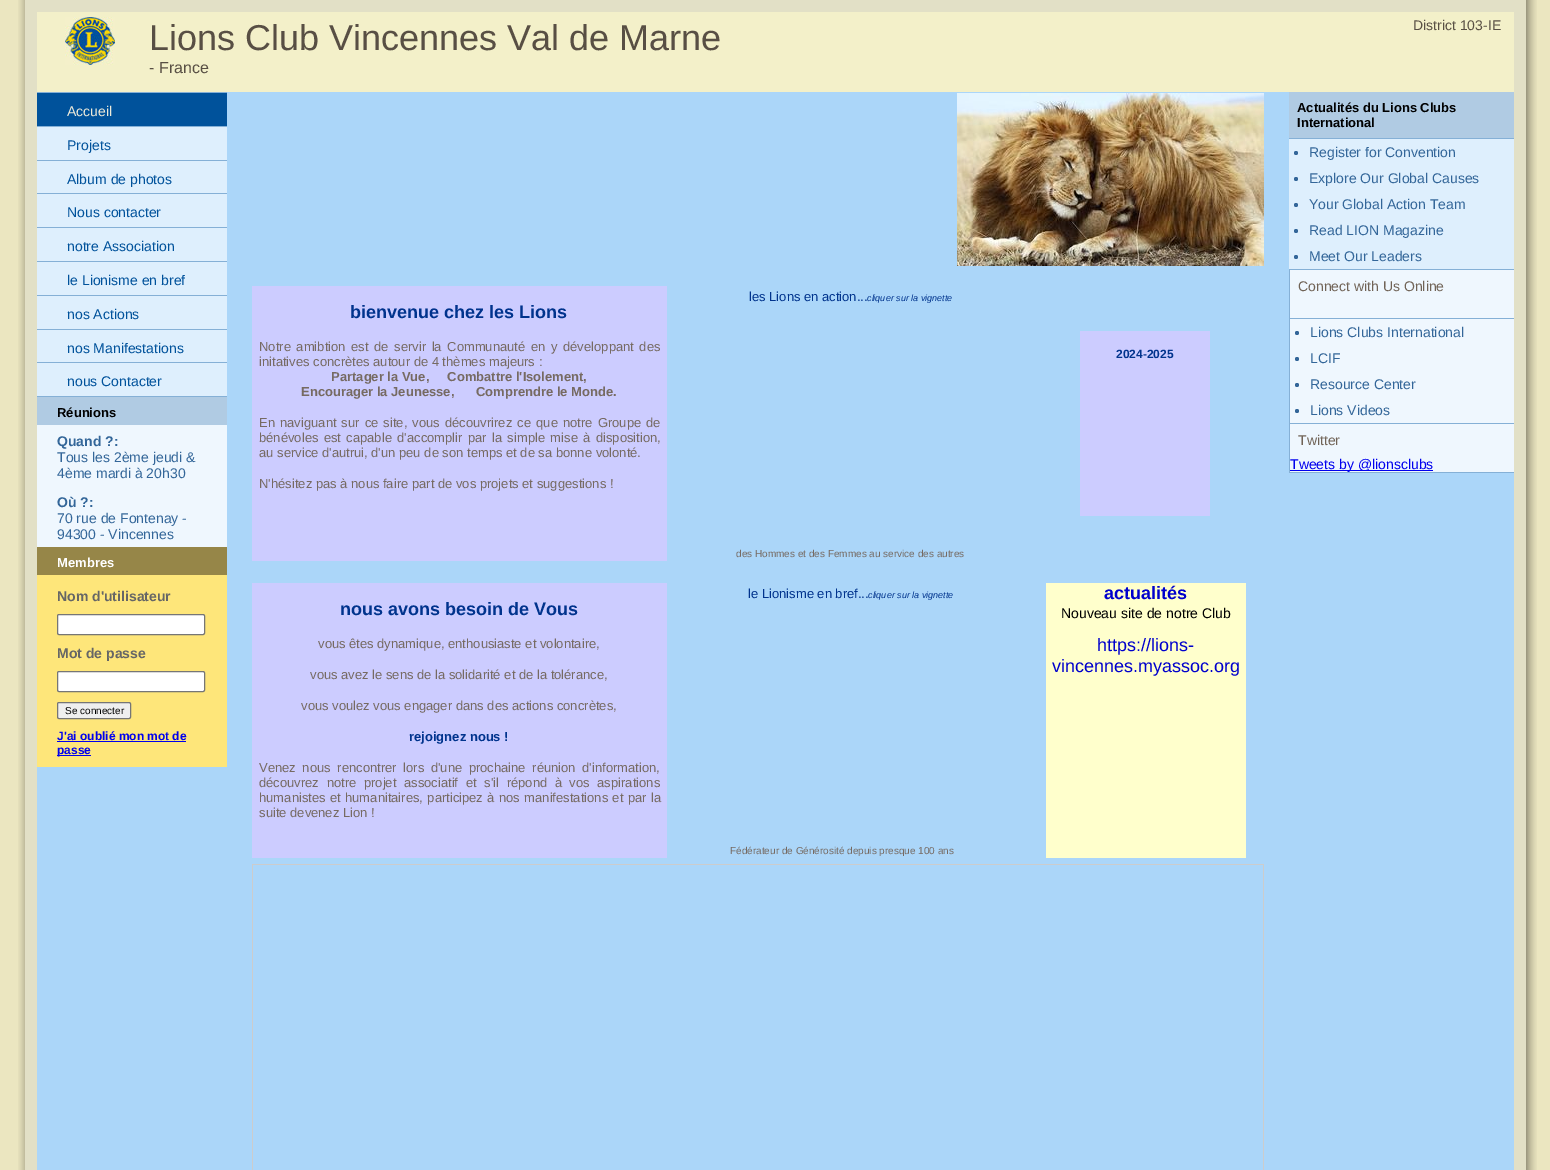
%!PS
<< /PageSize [1550 1170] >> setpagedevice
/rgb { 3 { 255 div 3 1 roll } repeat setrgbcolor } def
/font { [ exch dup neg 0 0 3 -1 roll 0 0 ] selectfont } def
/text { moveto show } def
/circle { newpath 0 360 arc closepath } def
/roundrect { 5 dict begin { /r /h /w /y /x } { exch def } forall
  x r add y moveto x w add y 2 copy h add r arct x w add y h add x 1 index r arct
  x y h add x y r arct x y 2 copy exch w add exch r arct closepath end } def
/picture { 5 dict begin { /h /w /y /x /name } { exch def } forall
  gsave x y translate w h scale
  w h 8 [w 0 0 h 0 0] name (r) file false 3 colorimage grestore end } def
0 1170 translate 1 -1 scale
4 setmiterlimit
235 230 192 rgb
0 0 1550 1170 rectfill
(img_01.rgb) 18 0 7 1170 picture
226 224 198 rgb
25 0 1501 1170 rectfill
243 240 201 rgb
37 12 1477 80 rectfill
(img_02.rgb) 65 17 50 48 picture
171 214 249 rgb
37 92 1477 1078 rectfill
133 176 214 rgb
37 92 190 1 rectfill
37 126 190 1 rectfill
0 82 155 rgb
37 93 190 33 rectfill
133 176 214 rgb
37 160 190 1 rectfill
222 239 253 rgb
37 127 190 33 rectfill
133 176 214 rgb
37 193 190 1 rectfill
222 239 253 rgb
37 161 190 32 rectfill
133 176 214 rgb
37 227 190 1 rectfill
222 239 253 rgb
37 194 190 33 rectfill
133 176 214 rgb
37 261 190 1 rectfill
222 239 253 rgb
37 228 190 33 rectfill
133 176 214 rgb
37 295 190 1 rectfill
222 239 253 rgb
37 262 190 33 rectfill
133 176 214 rgb
37 329 190 1 rectfill
222 239 253 rgb
37 296 190 33 rectfill
133 176 214 rgb
37 362 190 1 rectfill
222 239 253 rgb
37 330 190 32 rectfill
133 176 214 rgb
37 396 190 1 rectfill
222 239 253 rgb
37 363 190 33 rectfill
239 247 254 rgb
37 425 190 122 rectfill
176 203 227 rgb
37 397 190 28 rectfill
254 230 122 rgb
37 575 190 192 rectfill
150 134 72 rgb
37 547 190 28 rectfill
255 255 255 rgb
57.5 614.5 147 20 1.5 roundrect gsave fill grestore
118 118 118 rgb
stroke
255 255 255 rgb
57.5 671.5 147 20 1.5 roundrect gsave fill grestore
118 118 118 rgb
stroke
239 239 239 rgb
57.5 702.5 73 16 1.5 roundrect gsave fill grestore
118 118 118 rgb
stroke
0 0 238 rgb
57 741 129 1 rectfill
57 755 34 1 rectfill
(img_03.rgb) 957 93 307 173 picture
204 204 255 rgb
252 286 415 275 rectfill
1080 331 130 185 rectfill
252 583 415 275 rectfill
255 255 204 rgb
1046 583 200 275 rectfill
204 204 204 rgb
252 864 1012 1 rectfill
1263 864 1 306 rectfill
252 864 1 306 rectfill
222 239 253 rgb
1289 139 225 130 rectfill
176 203 227 rgb
1289 92 225 46 rectfill
133 176 214 rgb
1289 138 225 1 rectfill
51 102 153 rgb
1296 153 2 circle fill
1296 179 2 circle fill
1296 205 2 circle fill
1296 231 2 circle fill
1296 257 2 circle fill
133 176 214 rgb
1289 269 225 1 rectfill
239 247 254 rgb
1290 270 224 48 rectfill
133 176 214 rgb
1289 270 1 48 rectfill
1289 318 225 1 rectfill
239 247 254 rgb
1290 319 224 104 rectfill
133 176 214 rgb
1289 319 1 104 rectfill
51 102 153 rgb
1297 333 2 circle fill
1297 359 2 circle fill
1297 385 2 circle fill
1297 411 2 circle fill
133 176 214 rgb
1289 423 225 1 rectfill
239 247 254 rgb
1290 424 224 48 rectfill
133 176 214 rgb
1289 424 1 48 rectfill
0 0 238 rgb
1290 470 143 1 rectfill
133 176 214 rgb
1289 472 225 1 rectfill
(img_04.rgb) 1526 0 11 1170 picture
/LiberationSans-Regular 36 font
88 79 68 rgb
(Lions Club Vincennes Val de Marne) 149 50 text
/LiberationSans-Regular 16 font
(- France) 149 73 text
/LiberationSans-Regular 14 font
(District 103-IE) 1413 30 text
237 234 218 rgb
(Accueil) 67 116 text
0 82 155 rgb
(Projets) 67 150 text
(Album de photos) 67 184 text
(Nous contacter) 67 217 text
(notre Association) 67 251 text
(le Lionisme en bref) 67 285 text
(nos Actions) 67 319 text
(nos Manifestations) 67 353 text
(nous Contacter) 67 386 text
/LiberationSans-Bold 13 font
0 0 0 rgb
(Réunions) 57 417 text
/LiberationSans-Bold 14 font
51 102 153 rgb
(Quand ?:) 57 446 text
/LiberationSans-Regular 14 font
(Tous les 2ème jeudi &) 57 462 text
(4ème mardi à 20h30) 57 478 text
/LiberationSans-Bold 14 font
(Où ?:) 57 507 text
/LiberationSans-Regular 14 font
(70 rue de Fontenay -) 57 523 text
(94300 - Vincennes) 57 539 text
/LiberationSans-Bold 13 font
255 255 255 rgb
(Membres) 57 567 text
/LiberationSans-Bold 14 font
102 102 102 rgb
(Nom d'utilisateur) 57 601 text
(Mot de passe) 57 658 text
/LiberationSans-Regular 10 font
0 0 0 rgb
(Se connecter) 65 714 text
/LiberationSans-Bold 12 font
0 0 238 rgb
(J'ai oublié mon mot de) 57 740 text
(passe) 57 754 text
/LiberationSans-Bold 18 font
0 51 141 rgb
(bienvenue chez les Lions) 350 318 text
/LiberationSans-Regular 13 font
118 106 98 rgb
259 351 moveto 2 0 32 (Notre amibtion est de servir la Communauté en y développant des) widthshow
(initatives concrètes autour de 4 thèmes majeurs :) 259 366 text
/LiberationSans-Bold 13 font
(Partager la Vue,     Combattre l'Isolement,) 331 381 text
(Encourager la Jeunesse,      Comprendre le Monde.) 301 396 text
/LiberationSans-Regular 13 font
259 427 moveto 1.5 0 32 (En naviguant sur ce site, vous découvrirez ce que notre Groupe de) widthshow
259 442 moveto 1.75 0 32 (bénévoles est capable d'accomplir par la simple mise à disposition,) widthshow
(au service d'autrui, d'un peu de son temps et de sa bonne volonté.) 259 457 text
(N'hésitez pas à nous faire part de vos projets et suggestions !) 259 488 text
0 51 141 rgb
(les Lions en action...) 749 301 text
/LiberationSans-Italic 9 font
(cliquer sur la vignette) 867 301 text
/LiberationSans-Regular 10 font
118 106 98 rgb
(des Hommes et des Femmes au service des autres) 736 557 text
/LiberationSans-Bold 12 font
0 51 141 rgb
(2024-2025) 1116 358 text
/LiberationSans-Bold 18 font
(nous avons besoin de Vous) 340 615 text
/LiberationSans-Regular 13 font
118 106 98 rgb
(vous êtes dynamique, enthousiaste et volontaire,) 318 648 text
(vous avez le sens de la solidarité et de la tolérance,) 310 679 text
(vous voulez vous engager dans des actions concrètes,) 301 710 text
/LiberationSans-Bold 13 font
0 51 141 rgb
(rejoignez nous !) 409 741 text
/LiberationSans-Regular 13 font
118 106 98 rgb
259 772 moveto 3 0 32 (Venez nous rencontrer lors d'une prochaine réunion d'information,) widthshow
259 787 moveto 4 0 32 (découvrez notre projet associatif et s'il répond à vos aspirations) widthshow
259 802 moveto 0.75 0 32 (humanistes et humanitaires, participez à nos manifestations et par la) widthshow
(suite devenez Lion !) 259 817 text
0 51 141 rgb
(le Lionisme en bref...) 748 598 text
/LiberationSans-Italic 9 font
(cliquer sur la vignette) 868 598 text
/LiberationSans-Regular 10 font
118 106 98 rgb
(Fédérateur de Générosité depuis presque 100 ans) 730 854 text
/LiberationSans-Bold 18 font
0 0 205 rgb
(actualités) 1104 599 text
/LiberationSans-Regular 14 font
0 0 0 rgb
(Nouveau site de notre Club) 1061 618 text
/LiberationSans-Regular 18 font
0 0 205 rgb
(https://lions-) 1097 651 text
(vincennes.myassoc.org) 1052 672 text
/LiberationSans-Bold 13 font
0 0 0 rgb
(Actualités du Lions Clubs) 1297 112 text
(International) 1297 127 text
/LiberationSans-Regular 14 font
51 102 153 rgb
(Register for Convention) 1309 157 text
(Explore Our Global Causes) 1309 183 text
(Your Global Action Team) 1309 209 text
(Read LION Magazine) 1309 235 text
(Meet Our Leaders) 1309 261 text
112 99 86 rgb
(Connect with Us Online) 1298 291 text
51 102 153 rgb
(Lions Clubs International) 1310 337 text
(LCIF) 1310 363 text
(Resource Center) 1310 389 text
(Lions Videos) 1310 415 text
112 99 86 rgb
(Twitter) 1298 445 text
0 0 238 rgb
(Tweets by @lionsclubs) 1290 469 text
showpage
